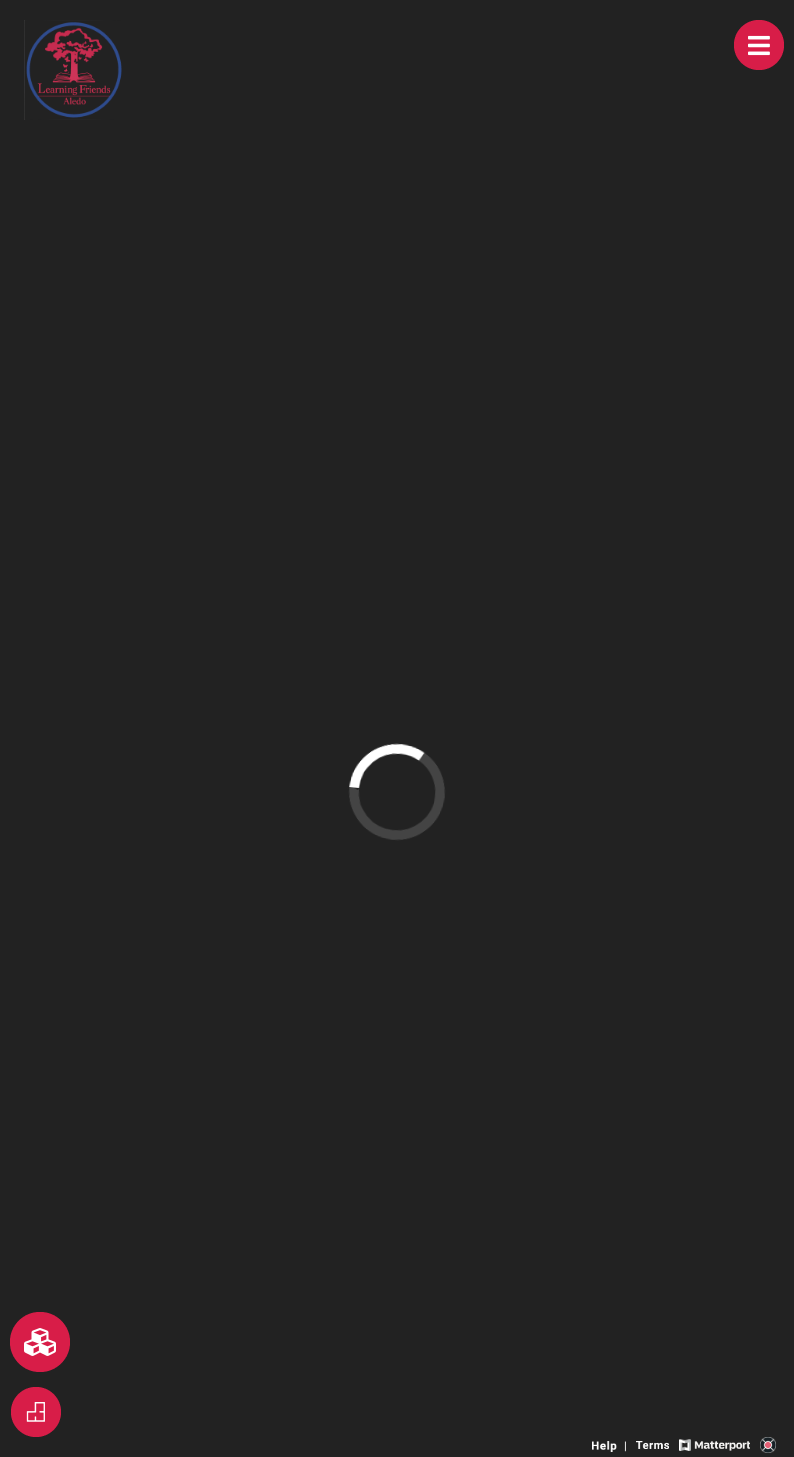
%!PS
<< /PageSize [794 1457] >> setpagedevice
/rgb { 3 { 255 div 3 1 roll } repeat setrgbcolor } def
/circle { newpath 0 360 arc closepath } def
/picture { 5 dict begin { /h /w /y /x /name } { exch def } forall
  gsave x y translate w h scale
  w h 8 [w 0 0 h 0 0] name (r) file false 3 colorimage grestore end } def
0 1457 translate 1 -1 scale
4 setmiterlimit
255 255 255 rgb
0 0 794 1457 rectfill
(img_01.rgb) 0 0 794 1457 picture
(img_02.rgb) 24 20 98 100 picture
216 29 72 rgb
759 45 25 circle fill
(img_03.rgb) 748 35 22 21 picture
40 1342 30 circle fill
(img_04.rgb) 24 1328 32 28 picture
36 1412 25 circle fill
(img_05.rgb) 26 1402 19 20 picture
(img_06.rgb) 592 1441 34 11 picture
(img_07.rgb) 636 1441 33 8 picture
(img_08.rgb) 679 1439 71 12 picture
(img_09.rgb) 760 1437 16 16 picture
showpage
